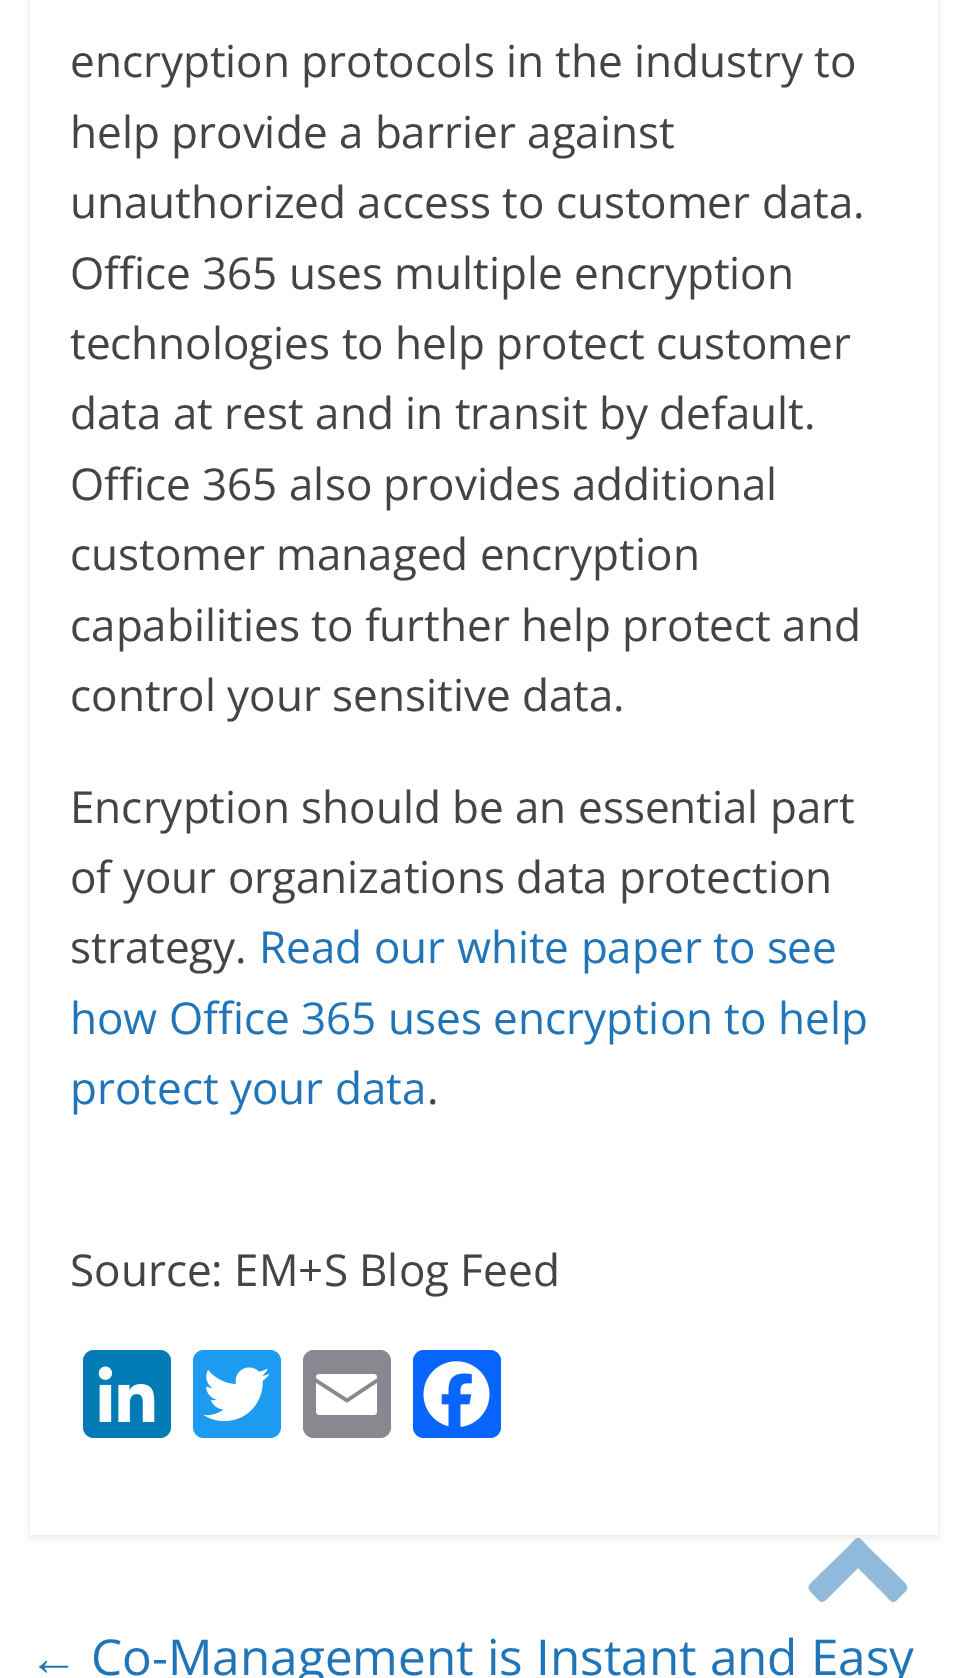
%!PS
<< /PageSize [966 1678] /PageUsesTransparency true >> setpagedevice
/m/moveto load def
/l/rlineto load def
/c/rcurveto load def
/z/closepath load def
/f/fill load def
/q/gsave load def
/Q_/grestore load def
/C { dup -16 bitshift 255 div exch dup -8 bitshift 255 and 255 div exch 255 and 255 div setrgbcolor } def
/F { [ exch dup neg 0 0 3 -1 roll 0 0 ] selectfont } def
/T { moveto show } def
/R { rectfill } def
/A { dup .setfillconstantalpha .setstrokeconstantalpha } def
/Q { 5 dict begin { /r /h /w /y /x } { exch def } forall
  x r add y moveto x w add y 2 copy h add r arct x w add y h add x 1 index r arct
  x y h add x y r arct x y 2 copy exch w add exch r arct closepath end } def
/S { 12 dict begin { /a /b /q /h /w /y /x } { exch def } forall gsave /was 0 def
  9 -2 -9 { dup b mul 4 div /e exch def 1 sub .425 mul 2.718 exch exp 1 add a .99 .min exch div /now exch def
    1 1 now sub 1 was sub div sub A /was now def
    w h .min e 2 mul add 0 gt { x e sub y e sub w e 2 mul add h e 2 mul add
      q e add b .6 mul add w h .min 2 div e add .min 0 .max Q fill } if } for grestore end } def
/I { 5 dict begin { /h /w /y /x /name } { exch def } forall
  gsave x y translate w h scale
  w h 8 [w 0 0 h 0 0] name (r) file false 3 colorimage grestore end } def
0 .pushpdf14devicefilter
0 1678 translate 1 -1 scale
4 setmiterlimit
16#FFFFFF C
0 0 966 1678 R
q
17 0 m 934 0 l 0 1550 l -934 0 l z 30 -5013 m 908 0 l 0 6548 l -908 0 l z eoclip newpath
16#000000 C
30 -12 908 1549 0 4 .1 S
Q_
/OpenSans-Regular 44 F
16#444444 C
(encryption protocols in the industry to) 70 77 T
(help provide a barrier against) 70 148 T
(unauthorized access to customer data.) 70 218 T
(Office 365 uses multiple encryption) 70 289 T
(technologies to help protect customer) 70 359 T
(data at rest and in transit by default.) 70 429 T
(Office 365 also provides additional) 70 500 T
(customer managed encryption) 70 570 T
(capabilities to further help protect and) 70 641 T
(control your sensitive data.) 70 711 T
(Encryption should be an essential part) 70 823 T
(of your organizations data protection) 70 893 T
(strategy.) 70 963 T
16#2075B8 C
(Read our white paper to see) 259 963 T
(how Office 365 uses encryption to help) 70 1034 T
(protect your data) 70 1104 T
16#444444 C
(.) 427 1104 T
(Source: EM+S Blog Feed) 70 1286 T
16#007BB5 C
83 1350 88 88 11 Q f
(1.rgb) 98 1366 57 56 I
16#1D9BF0 C
193 1350 88 88 11 Q f
(2.rgb) 203 1367 67 55 I
16#888990 C
303 1350 88 88 11 Q f
16#FFFFFF C
377 1410 m 0 -27 l -30 20 l -31 -20 l 0 27 l 0 4 1 5 5 5 c 51 0 l 4 0 5 -1 5 -5 c 377 1378 m 0 -3 -1 -4 -5 -4 c -51 0 l -4 0 -5 1 -5 4 c 31 20 l z f
16#0866FF C
413 1350 88 88 11 Q f
(3.rgb) 423 1361 67 66 I
/LiberationSerif-Regular 49.5 F
16#2075B8 C
(←) 29 1675 T
/OpenSans-Regular 49.5 F
(Co-Management is Instant and Easy) 91 1675 T
0.5 A
906 1591 m -8 8 l -6 6 -7 2 -13 -4 c -27 -27 l -27 27 l -11 11 -9 8 -20 -3 c -6 -6 0 -8 6 -15 c 31 -30 l 11 -12 9 -12 20 0 c 31 30 l 1 2 12 9 7 14 c z f
.poppdf14devicefilter showpage
